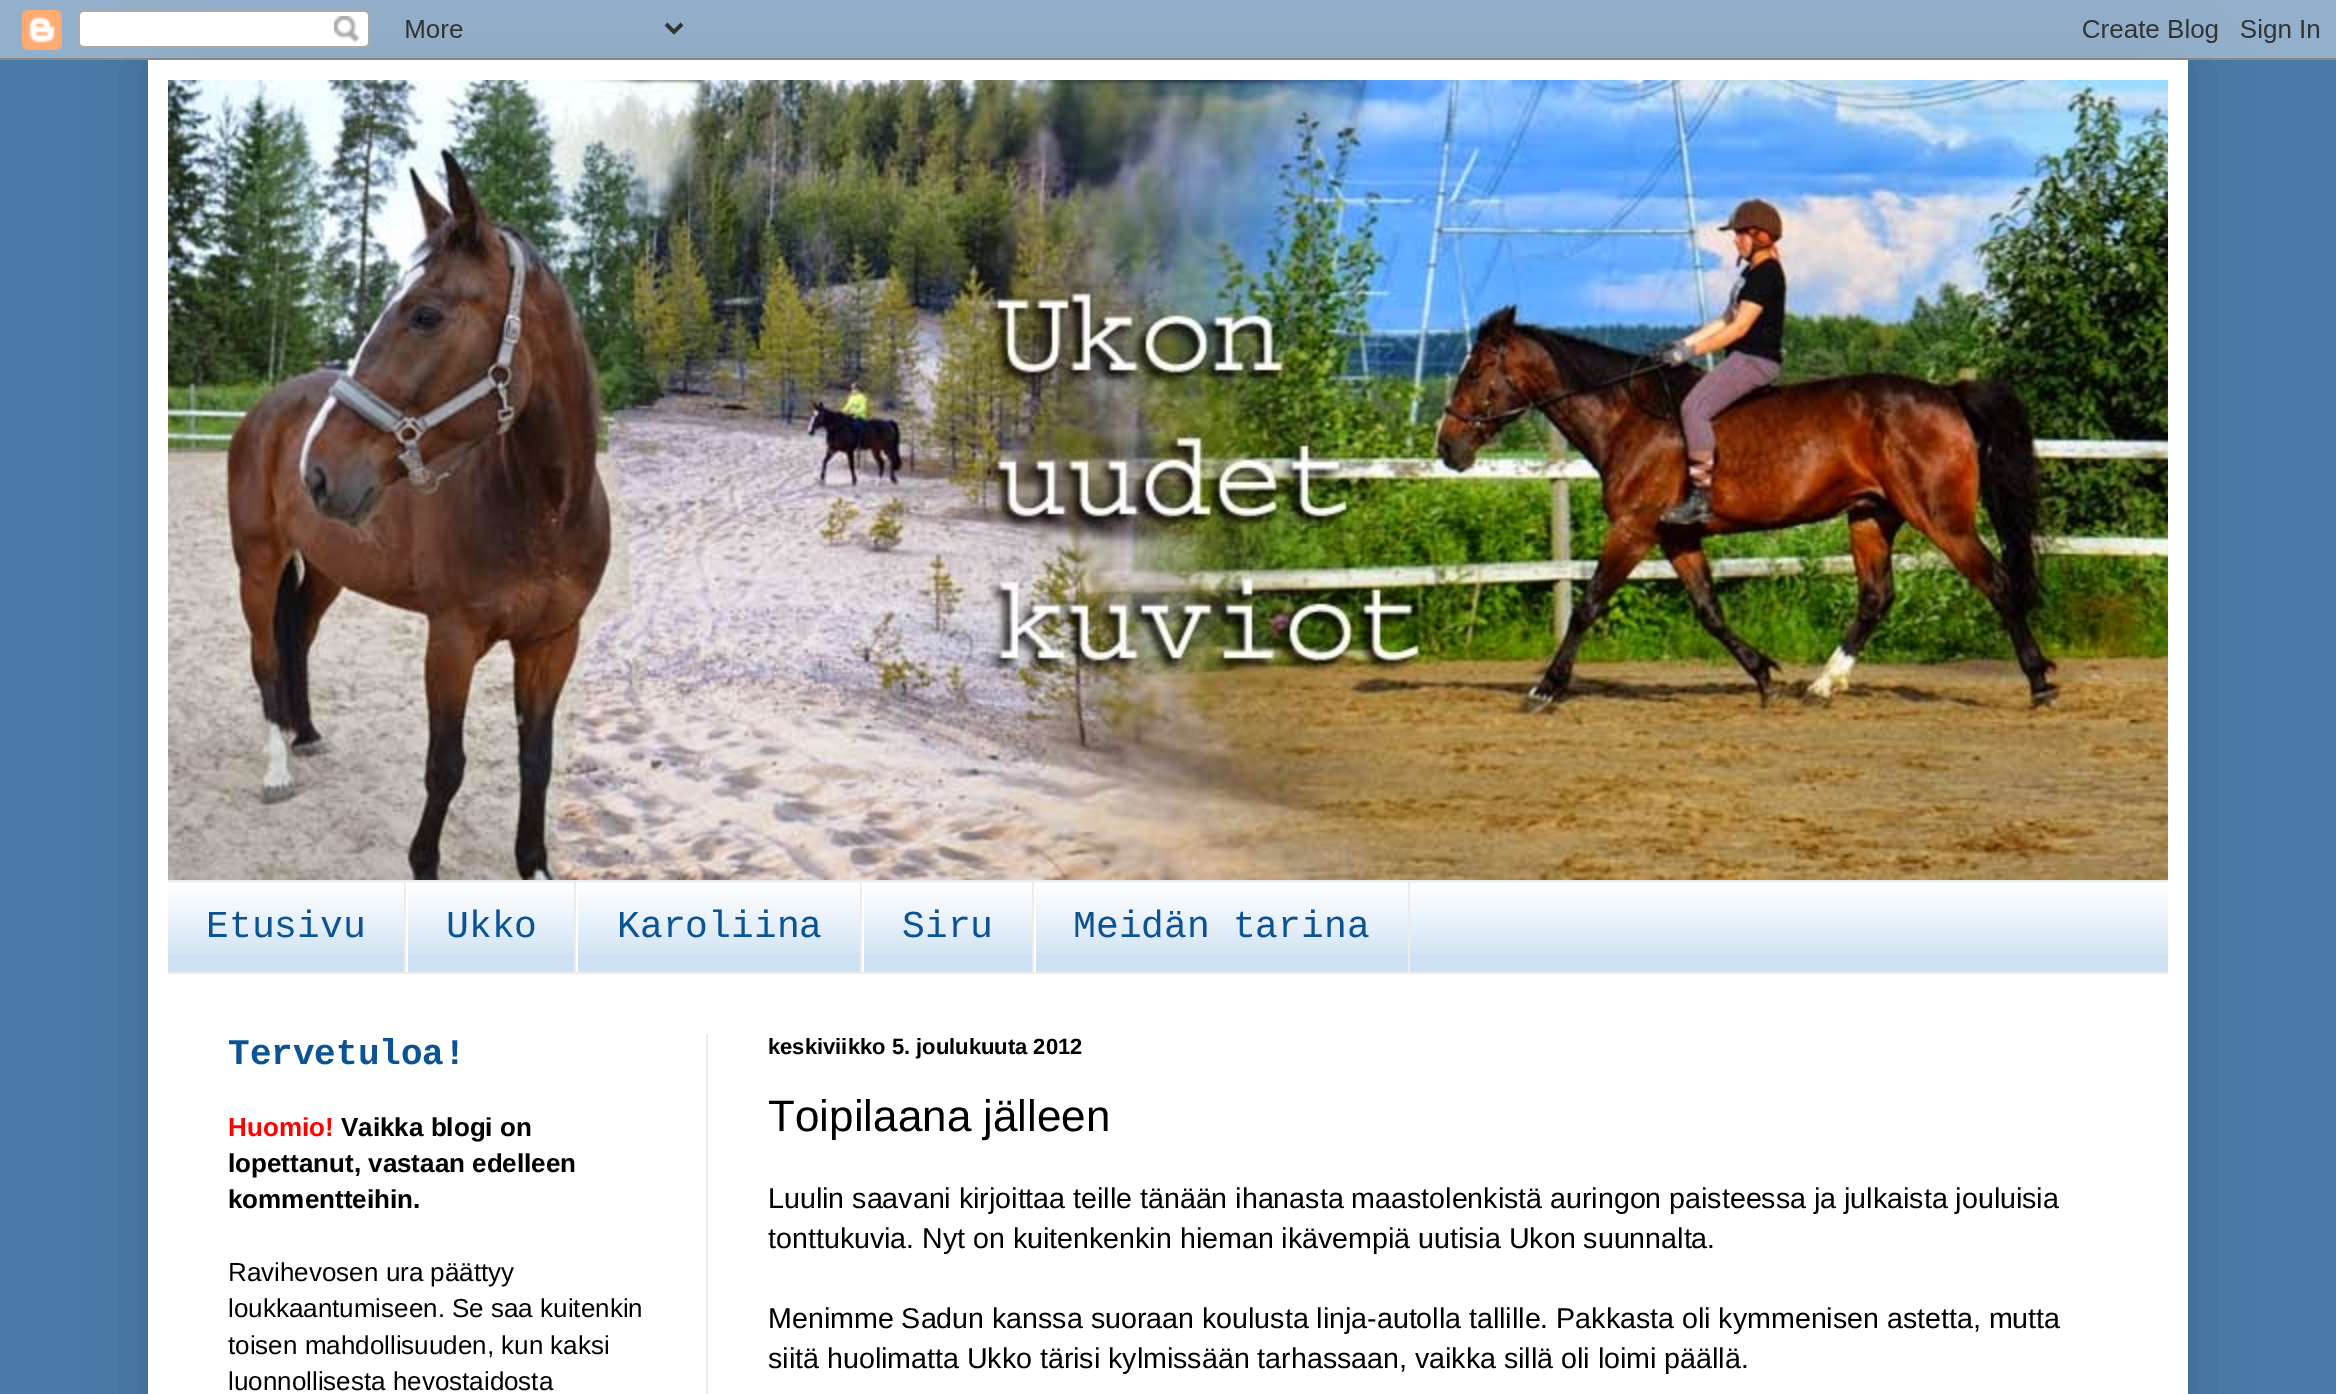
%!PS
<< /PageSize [2336 1394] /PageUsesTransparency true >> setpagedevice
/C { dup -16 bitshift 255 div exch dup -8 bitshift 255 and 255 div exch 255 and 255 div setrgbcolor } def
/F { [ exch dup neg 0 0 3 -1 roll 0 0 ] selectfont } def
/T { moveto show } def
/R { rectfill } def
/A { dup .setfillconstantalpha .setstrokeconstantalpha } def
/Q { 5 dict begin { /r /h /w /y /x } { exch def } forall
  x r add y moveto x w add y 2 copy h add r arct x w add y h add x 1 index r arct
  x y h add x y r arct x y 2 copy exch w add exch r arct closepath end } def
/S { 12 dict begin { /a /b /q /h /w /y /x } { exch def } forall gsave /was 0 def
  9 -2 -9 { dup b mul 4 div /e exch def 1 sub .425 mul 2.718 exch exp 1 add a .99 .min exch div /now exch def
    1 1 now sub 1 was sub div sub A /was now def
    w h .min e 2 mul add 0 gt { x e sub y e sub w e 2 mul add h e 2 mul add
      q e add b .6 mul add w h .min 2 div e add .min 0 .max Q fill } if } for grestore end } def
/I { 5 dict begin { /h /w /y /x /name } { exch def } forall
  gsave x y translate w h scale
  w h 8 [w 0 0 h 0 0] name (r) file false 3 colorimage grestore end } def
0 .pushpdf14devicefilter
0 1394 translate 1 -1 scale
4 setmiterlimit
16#4A7AA8 C
0 0 2336 1394 R
16#000000 C
148 60 2040 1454 0 40 .15 S
(1.rgb) 0 0 2336 60 I
16#FFFFFF C
148 60 2040 1334 R
(2.rgb) 168 80 2000 800 I
16#CFE2F3 C
168 882 2000 90 R
(3.rgb) 168 882 2000 72 I
16#ECECEC C
168 880 2000 2 R
168 972 2000 2 R
404 882 2 90 R
/LiberationMono-Regular 38 F
16#0B5394 C
(Etusivu) 206 937 T
16#ECECEC C
574 882 2 90 R
16#FFFFFF C
406 882 2 90 R
16#0B5394 C
(Ukko) 446 937 T
16#ECECEC C
860 882 2 90 R
16#FFFFFF C
576 882 2 90 R
16#0B5394 C
(Karoliina) 617 937 T
16#ECECEC C
1032 882 2 90 R
16#FFFFFF C
862 882 2 90 R
16#0B5394 C
(Siru) 902 937 T
16#ECECEC C
1408 882 2 90 R
16#FFFFFF C
1034 882 2 90 R
16#0B5394 C
(Meidän tarina) 1073 937 T
16#ECECEC C
706 1034 2 360 R
/LiberationMono-Bold 36 F
16#0B5394 C
(Tervetuloa!) 228 1064 T
/LiberationSans-Bold 26 F
16#FF0000 C
(Huomio!) 228 1136 T
16#000000 C
(Vaikka blogi on) 341 1136 T
(lopettanut, vastaan edelleen) 228 1172 T
(kommentteihin.) 228 1208 T
/LiberationSans-Regular 26 F
(Ravihevosen ura päättyy) 228 1281 T
(loukkaantumiseen. Se saa kuitenkin) 228 1317 T
(toisen mahdollisuuden, kun kaksi) 228 1354 T
(luonnollisesta hevostaidosta) 228 1390 T
/LiberationSans-Bold 22 F
(keskiviikko 5. joulukuuta 2012) 768 1054 T
/LiberationSans-Regular 44 F
(Toipilaana jälleen) 768 1131 T
/LiberationSans-Regular 28.6 F
(Luulin saavani kirjoittaa teille tänään ihanasta maastolenkistä auringon paisteessa ja julkaista jouluisia) 768 1208 T
(tonttukuvia. Nyt on kuitenkenkin hieman ikävempiä uutisia Ukon suunnalta.) 768 1248 T
(Menimme Sadun kanssa suoraan koulusta linja-autolla tallille. Pakkasta oli kymmenisen astetta, mutta) 768 1328 T
(siitä huolimatta Ukko tärisi kylmissään tarhassaan, vaikka sillä oli loimi päällä.) 768 1368 T
.poppdf14devicefilter showpage
